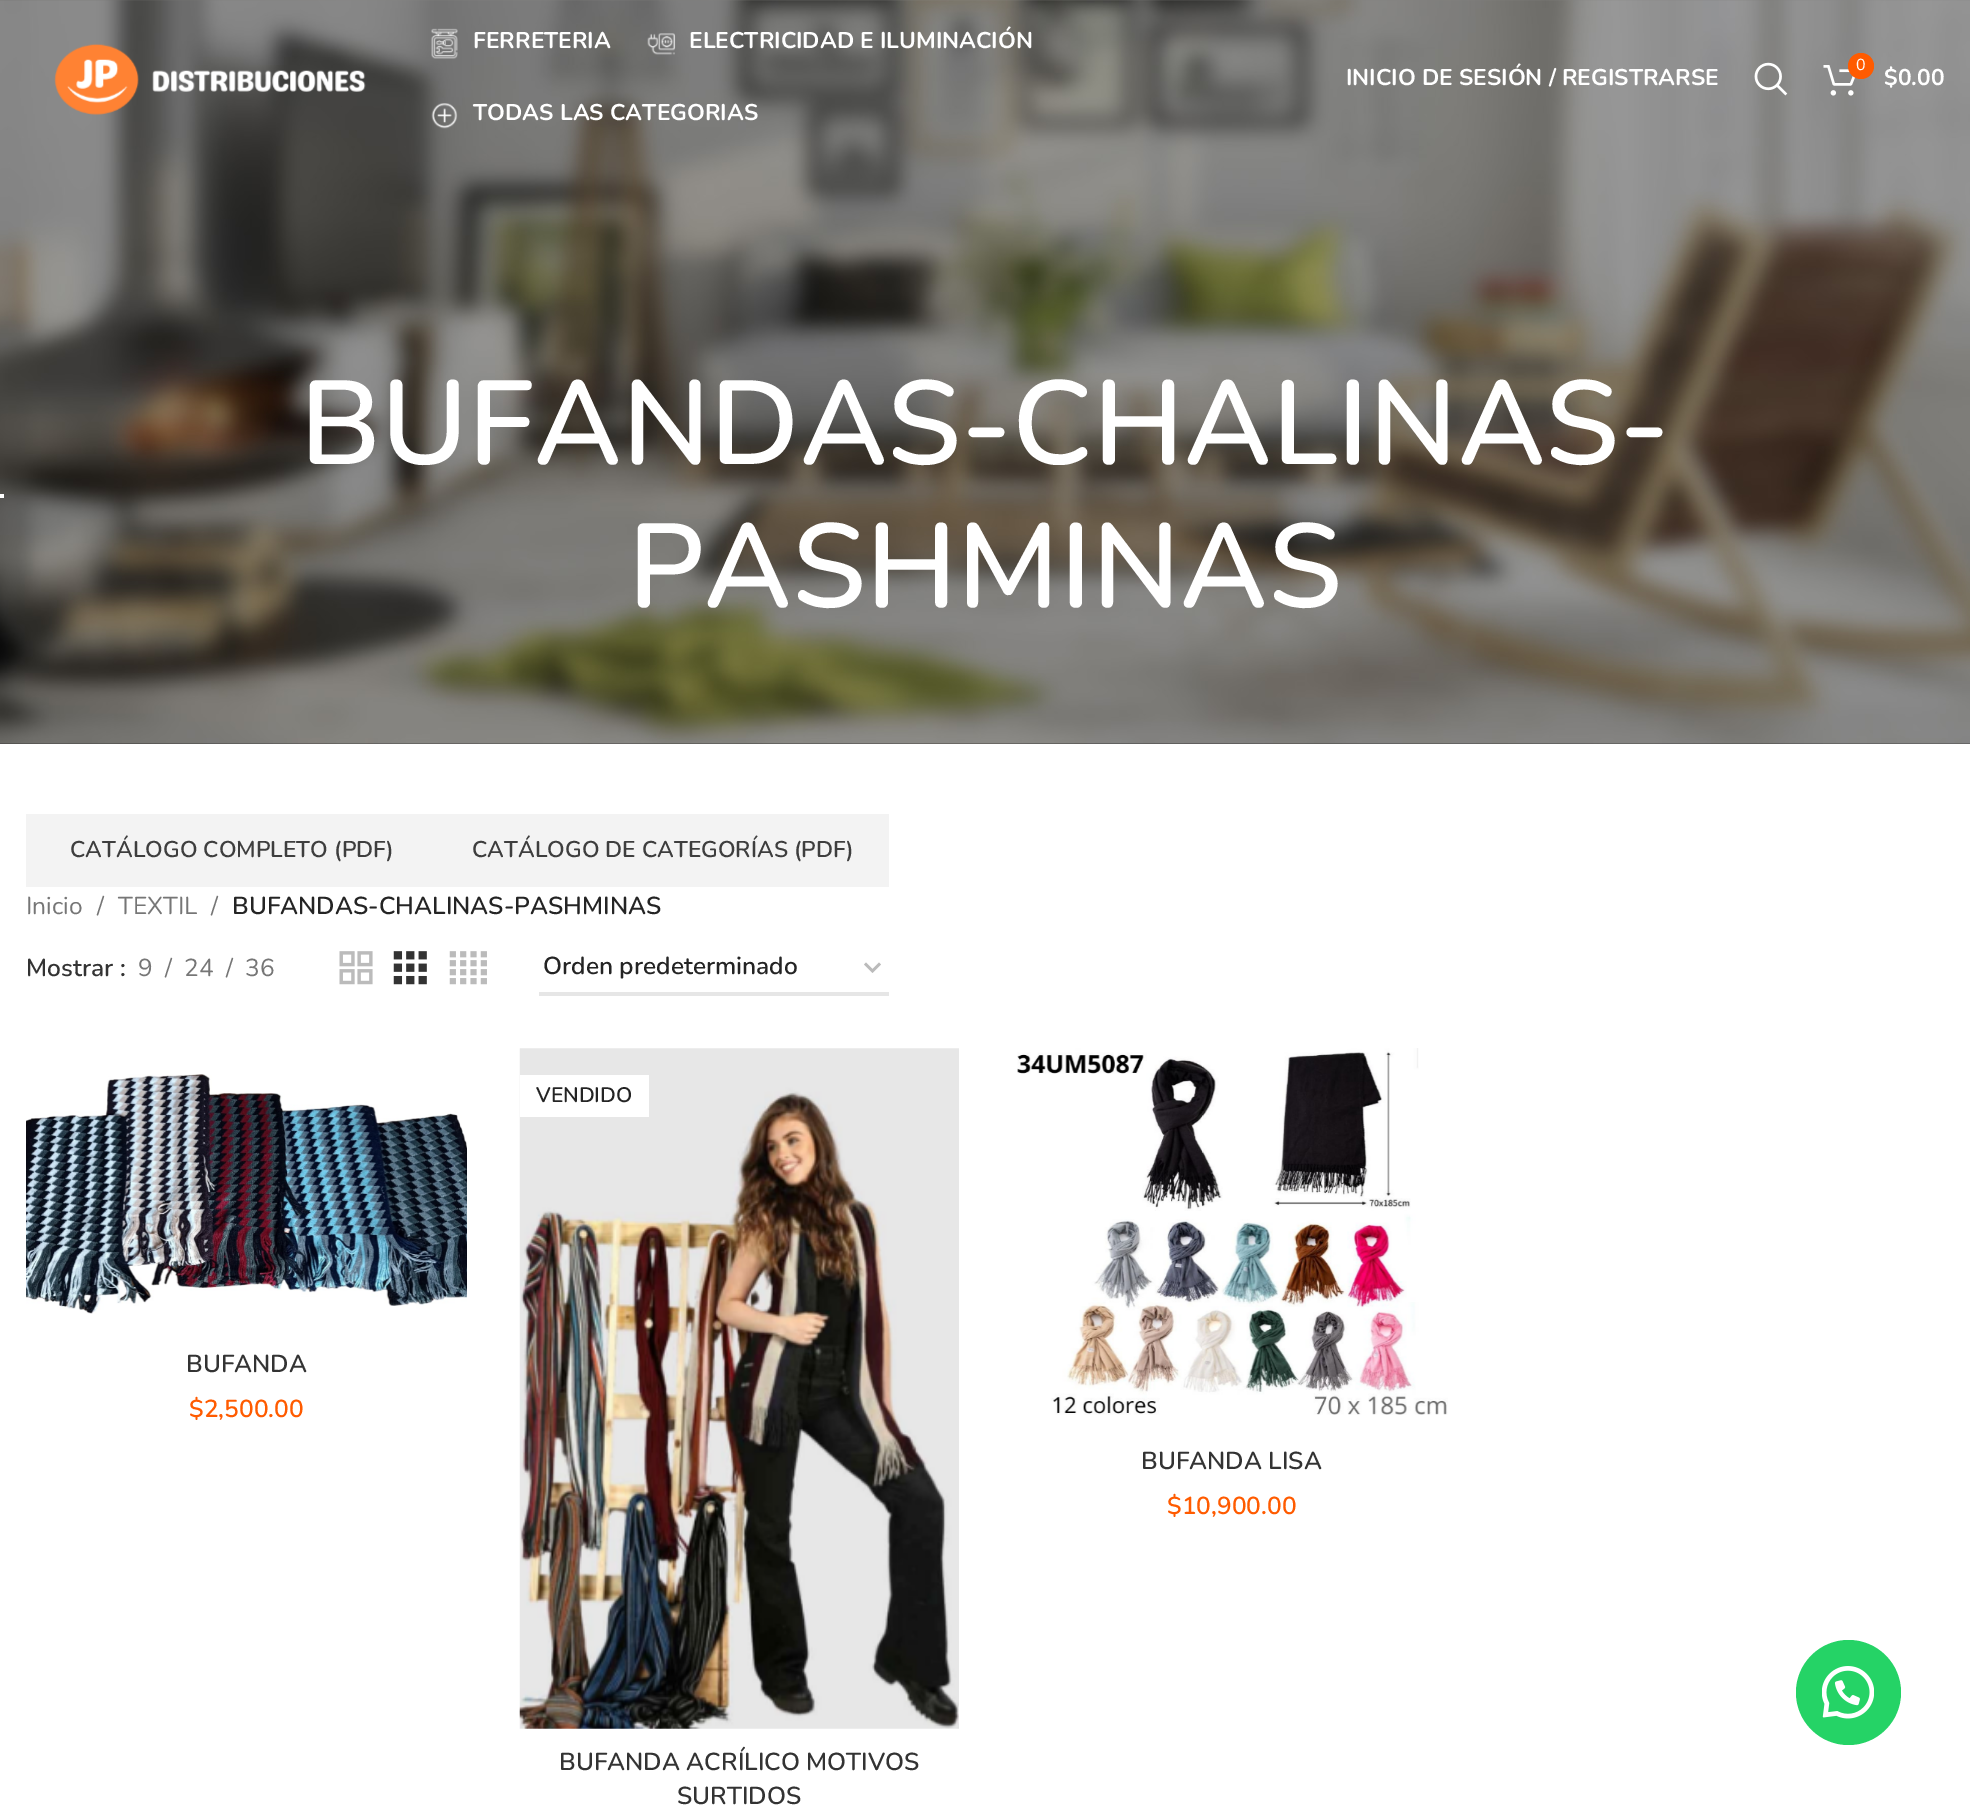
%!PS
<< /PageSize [1970 1814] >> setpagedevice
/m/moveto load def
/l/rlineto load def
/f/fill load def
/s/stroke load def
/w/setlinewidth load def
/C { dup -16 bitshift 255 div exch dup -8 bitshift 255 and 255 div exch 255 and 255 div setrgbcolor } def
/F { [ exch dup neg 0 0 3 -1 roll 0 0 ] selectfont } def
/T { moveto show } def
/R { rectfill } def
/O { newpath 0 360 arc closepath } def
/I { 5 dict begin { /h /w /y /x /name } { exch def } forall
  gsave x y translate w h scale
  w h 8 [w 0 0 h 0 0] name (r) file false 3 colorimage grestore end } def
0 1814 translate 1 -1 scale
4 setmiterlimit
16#FFFFFF C
0 0 1970 1814 R
(7.rgb) 0 0 1970 744 I
(1.rgb) 54 44 312 71 I
(2.rgb) 431 28 27 31 I
/Nunito-Bold 22.75 F
(FERRETERIA) 473 48 T
(3.rgb) 647 33 29 22 I
(ELECTRICIDAD E ILUMINACIÓN) 689 48 T
(4.rgb) 431 103 27 26 I
(TODAS LAS CATEGORIAS) 473 120 T
(INICIO DE SESIÓN / REGISTRARSE) 1346 85 T
(5.rgb) 1754 62 34 34 I
(6.rgb) 1823 65 33 31 I
16#FF5B00 C
1861 66 13 O f
/Nunito-Regular 16 F
16#FFFFFF C
(0) 1856 70 T
/Nunito-Bold 22.75 F
($0.00) 1884 85 T
0 494 4 4 R
/Nunito-SemiBold 119 F
(BUFANDAS-CHALINAS-) 300 464 T
(PASHMINAS) 628 607 T
16#F3F3F3 C
26 814 863 73 R
/Nunito-SemiBold 22.75 F
16#3E3E3E C
(CATÁLOGO COMPLETO \(PDF\)) 70 857 T
(CATÁLOGO DE CATEGORÍAS \(PDF\)) 472 857 T
/Nunito-Regular 24.5 F
16#767676 C
(Inicio) 26 914 T
(/) 97 914 T
(TEXTIL) 118 914 T
(/) 211 914 T
/Nunito-SemiBold 24.5 F
16#242424 C
(BUFANDAS-CHALINAS-PASHMINAS) 232 914 T
16#333333 C
(Mostrar :) 26 976 T
/Nunito-Regular 24.5 F
16#767676 C
(9) 138 976 T
(/) 165 976 T
(24) 184 976 T
(/) 226 976 T
(36) 245 976 T
(8.rgb) 339 951 34 34 I
(9.rgb) 393 951 34 34 I
(10.rgb) 449 951 38 34 I
16#BBBBBB C
2.5 w
865 963.5 m 7.5 7.5 l 7.5 -7.5 l s
16#E6E6E6 C
539 992 350 4 R
/Nunito-SemiBold 24.5 F
16#242424 C
(Orden predeterminado) 543 974 T
(11.rgb) 26 1074 441 240 I
16#333333 C
(BUFANDA) 186 1372 T
16#FF5B00 C
($2,500.00) 189 1417 T
(12.rgb) 519 1048 440 681 I
16#FFFFFF C
520 1075 129 42 R
/Nunito-SemiBold 21 F
16#242424 C
(VENDIDO) 536 1102 T
/Nunito-SemiBold 24.5 F
16#333333 C
(BUFANDA ACRÍLICO MOTIVOS) 559 1770 T
(SURTIDOS) 677 1804 T
(13.rgb) 1017 1048 431 367 I
(BUFANDA LISA) 1141 1469 T
16#FF5B00 C
($10,900.00) 1167 1514 T
16#25D366 C
1848.5 1692.5 52.5 O f
(14.rgb) 1822 1666 52 53 I
showpage
